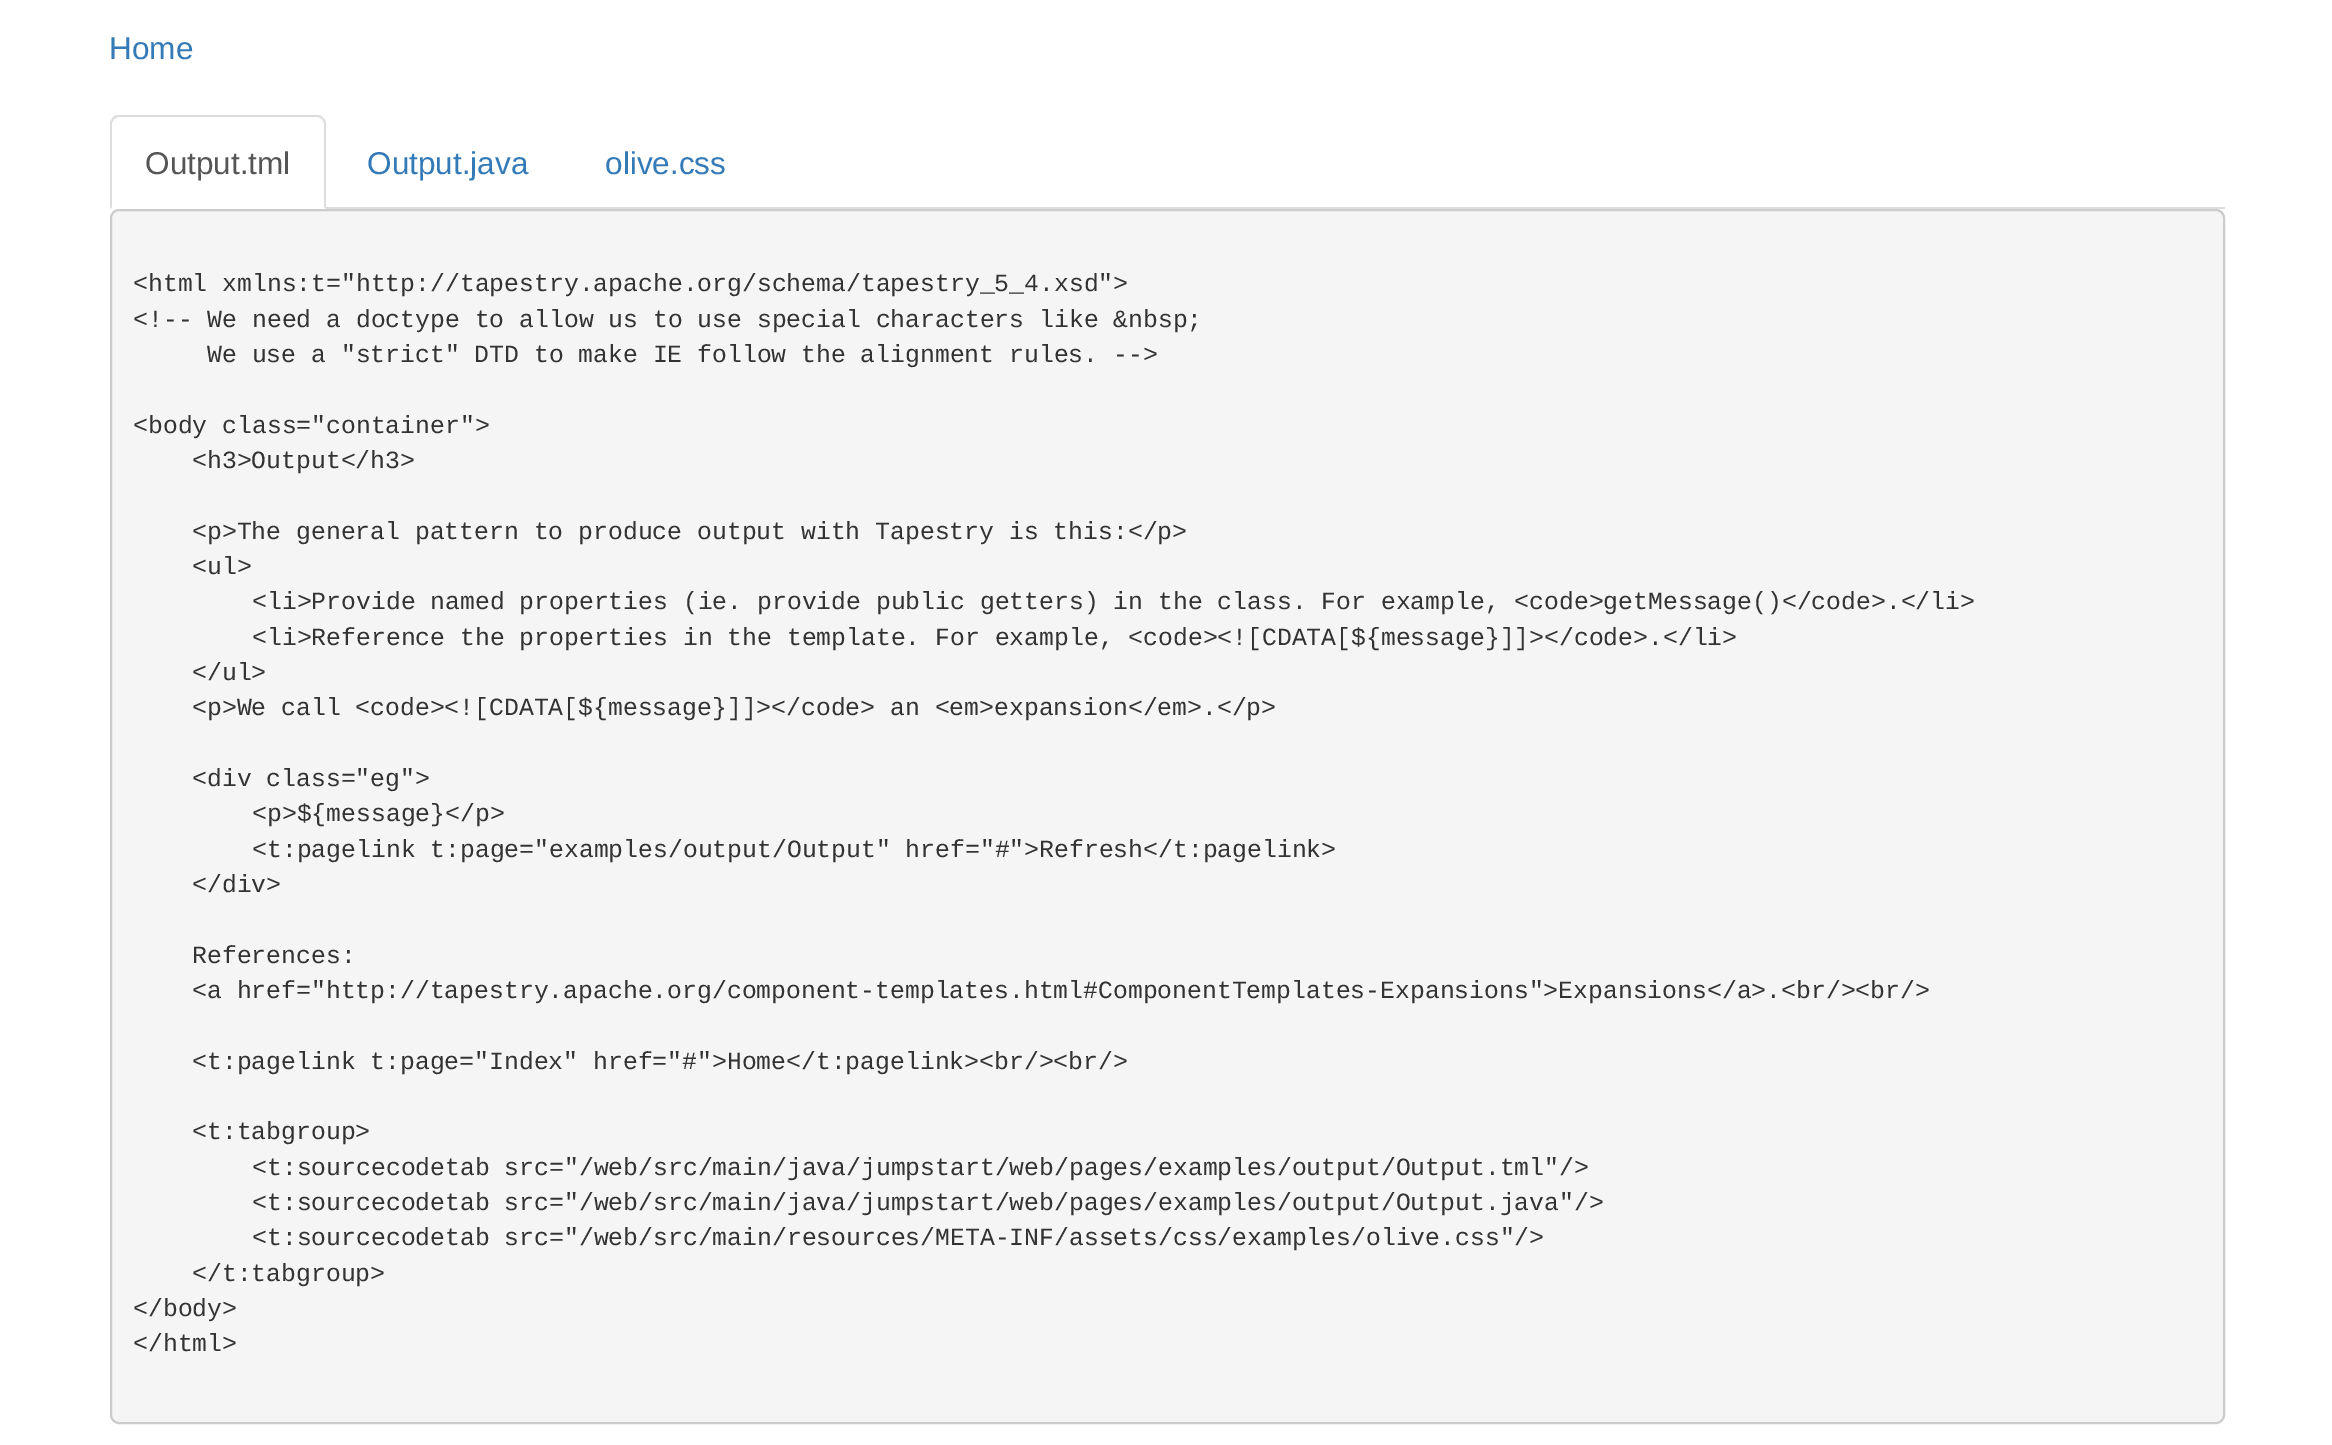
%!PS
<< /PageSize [2332 1445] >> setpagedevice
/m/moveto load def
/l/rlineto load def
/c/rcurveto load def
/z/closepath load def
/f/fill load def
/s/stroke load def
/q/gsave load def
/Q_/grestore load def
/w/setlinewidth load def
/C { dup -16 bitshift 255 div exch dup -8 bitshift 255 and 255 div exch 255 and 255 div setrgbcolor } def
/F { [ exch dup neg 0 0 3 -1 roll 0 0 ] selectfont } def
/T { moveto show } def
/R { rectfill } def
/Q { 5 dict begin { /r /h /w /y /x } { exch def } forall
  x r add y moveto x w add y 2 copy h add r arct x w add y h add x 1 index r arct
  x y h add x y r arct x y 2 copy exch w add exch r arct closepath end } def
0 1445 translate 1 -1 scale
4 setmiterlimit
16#FFFFFF C
0 0 2332 1445 R
/LiberationSans-Regular 31.5 F
16#337AB7 C
(Home) 109 59 T
16#DDDDDD C
326 207 1899 2 R
119 115 m -2 0 -5 1 -6 2 c 1 2 l 4 -2 l 199 0 l 2 0 4 1 5 2 c 1 -1 l -1 -2 -3 -3 -6 -3 c z f
326 209 m 0 -85 l 0 -2 -1 -5 -3 -6 c -1 1 l 1 1 2 3 2 5 c 0 83 l z f
110 122 m 1 -2 2 -3 3 -5 c 1 2 l -2 4 l 0 84 l -2 2 l z f
16#555555 C
(Output.tml) 145 174 T
16#337AB7 C
(Output.java) 367 174 T
(olive.css) 605 174 T
16#F5F5F5 C
111 210 2113 1213 8 Q q f Q_
16#CCCCCC C
2 w
s
/LiberationMono-Regular 24.75 F
16#333333 C
(<html xmlns:t="http://tapestry.apache.org/schema/tapestry_5_4.xsd">) 133 291 T
(<!-- We need a doctype to allow us to use special characters like &nbsp;) 133 327 T
(We use a "strict" DTD to make IE follow the alignment rules. -->) 207 362 T
(<body class="container">) 133 433 T
(<h3>Output</h3>) 192 468 T
(<p>The general pattern to produce output with Tapestry is this:</p>) 192 539 T
(<ul>) 192 574 T
(<li>Provide named properties \(ie. provide public getters\) in the class. For example, <code>getMessage\(\)</code>.</li>) 252 609 T
(<li>Reference the properties in the template. For example, <code><![CDATA[${message}]]></code>.</li>) 252 645 T
(</ul>) 192 680 T
(<p>We call <code><![CDATA[${message}]]></code> an <em>expansion</em>.</p>) 192 715 T
(<div class="eg">) 192 786 T
(<p>${message}</p>) 252 821 T
(<t:pagelink t:page="examples/output/Output" href="#">Refresh</t:pagelink>) 252 857 T
(</div>) 192 892 T
(References:) 192 963 T
(<a href="http://tapestry.apache.org/component-templates.html#ComponentTemplates-Expansions">Expansions</a>.<br/><br/>) 192 998 T
(<t:pagelink t:page="Index" href="#">Home</t:pagelink><br/><br/>) 192 1069 T
(<t:tabgroup>) 192 1139 T
(<t:sourcecodetab src="/web/src/main/java/jumpstart/web/pages/examples/output/Output.tml"/>) 252 1175 T
(<t:sourcecodetab src="/web/src/main/java/jumpstart/web/pages/examples/output/Output.java"/>) 252 1210 T
(<t:sourcecodetab src="/web/src/main/resources/META-INF/assets/css/examples/olive.css"/>) 252 1245 T
(</t:tabgroup>) 192 1281 T
(</body>) 133 1316 T
(</html>) 133 1351 T
showpage
